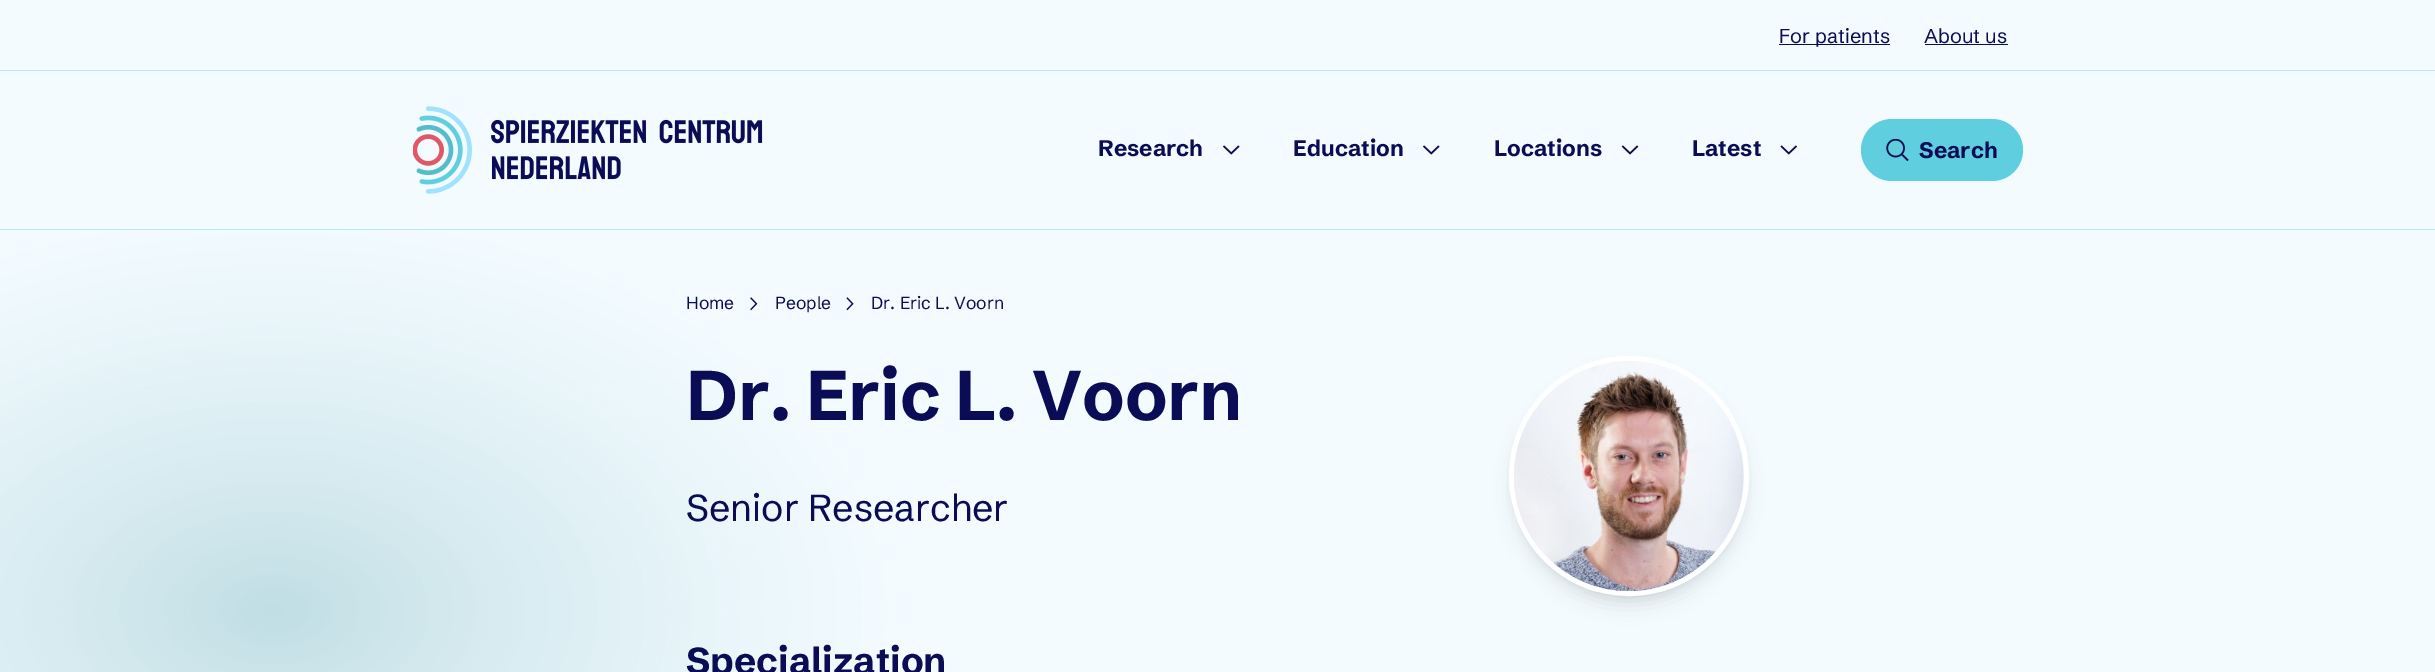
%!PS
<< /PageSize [2435 672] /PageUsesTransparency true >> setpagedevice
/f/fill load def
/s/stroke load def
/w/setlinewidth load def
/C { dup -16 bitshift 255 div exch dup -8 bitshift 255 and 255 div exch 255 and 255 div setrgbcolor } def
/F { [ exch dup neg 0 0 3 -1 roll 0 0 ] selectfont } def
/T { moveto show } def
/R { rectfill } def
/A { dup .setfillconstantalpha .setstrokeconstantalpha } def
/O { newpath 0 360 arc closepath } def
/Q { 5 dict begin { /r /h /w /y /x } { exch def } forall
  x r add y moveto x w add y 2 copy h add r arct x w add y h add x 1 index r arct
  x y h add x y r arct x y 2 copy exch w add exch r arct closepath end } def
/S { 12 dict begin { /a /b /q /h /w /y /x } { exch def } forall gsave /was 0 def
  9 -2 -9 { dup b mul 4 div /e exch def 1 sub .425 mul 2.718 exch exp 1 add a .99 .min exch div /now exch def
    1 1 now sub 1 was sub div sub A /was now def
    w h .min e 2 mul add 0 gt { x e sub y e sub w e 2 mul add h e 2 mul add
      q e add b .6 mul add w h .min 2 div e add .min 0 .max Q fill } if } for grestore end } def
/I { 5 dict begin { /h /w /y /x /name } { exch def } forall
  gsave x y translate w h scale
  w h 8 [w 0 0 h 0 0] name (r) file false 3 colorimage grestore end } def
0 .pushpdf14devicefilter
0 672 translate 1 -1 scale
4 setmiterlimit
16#F3FBFF C
0 0 2435 672 R
16#0A0D55 C
1779 44 111 1 R
/SchibstedGrotesk-Regular 20 F
(For patients) 1779 43 T
(About us) 1924 43 T
1925 44 83 1 R
16#B5E9F1 C
0 70 2435 1 R
0 229 2435 1 R
(1.rgb) 413 106 350 88 I
/SchibstedGrotesk-Bold 22.5 F
16#0A0D55 C
(Research) 1098 156 T
(2.rgb) 1222 145 18 10 I
(Education) 1293 156 T
(2.rgb) 1422 145 18 10 I
(Locations) 1494 156 T
(3.rgb) 1621 145 18 10 I
(Latest) 1692 156 T
(4.rgb) 1780 145 18 10 I
16#5FCFE0 C
1861 119 162 62 31 Q f
(5.rgb) 1886 139 23 22 I
16#0A0D55 C
(Search) 1919 158 T
(6.rgb) 0 230 900 442 I
/SchibstedGrotesk-Regular 17.5 F
(Home) 686 309 T
(7.rgb) 750 297 8 14 I
(People) 775 309 T
(8.rgb) 846 297 8 14 I
(Dr. Eric L. Voorn) 871 309 T
/SchibstedGrotesk-Bold 70 F
(Dr. Eric L. Voorn) 686 420 T
/SchibstedGrotesk-Regular 37.5 F
(Senior Researcher) 686 521 T
16#000000 C
1514 366 230 230 115 4 .1 S
1513 373 232 232 116 9.5 .1 S
16#FFFFFF C
5 w
1629 476 117.5 O s
(9.rgb) 1514 362 230 230 I
/SchibstedGrotesk-Bold 37.5 F
16#0A0D55 C
(Specialization) 686 674 T
.poppdf14devicefilter showpage
